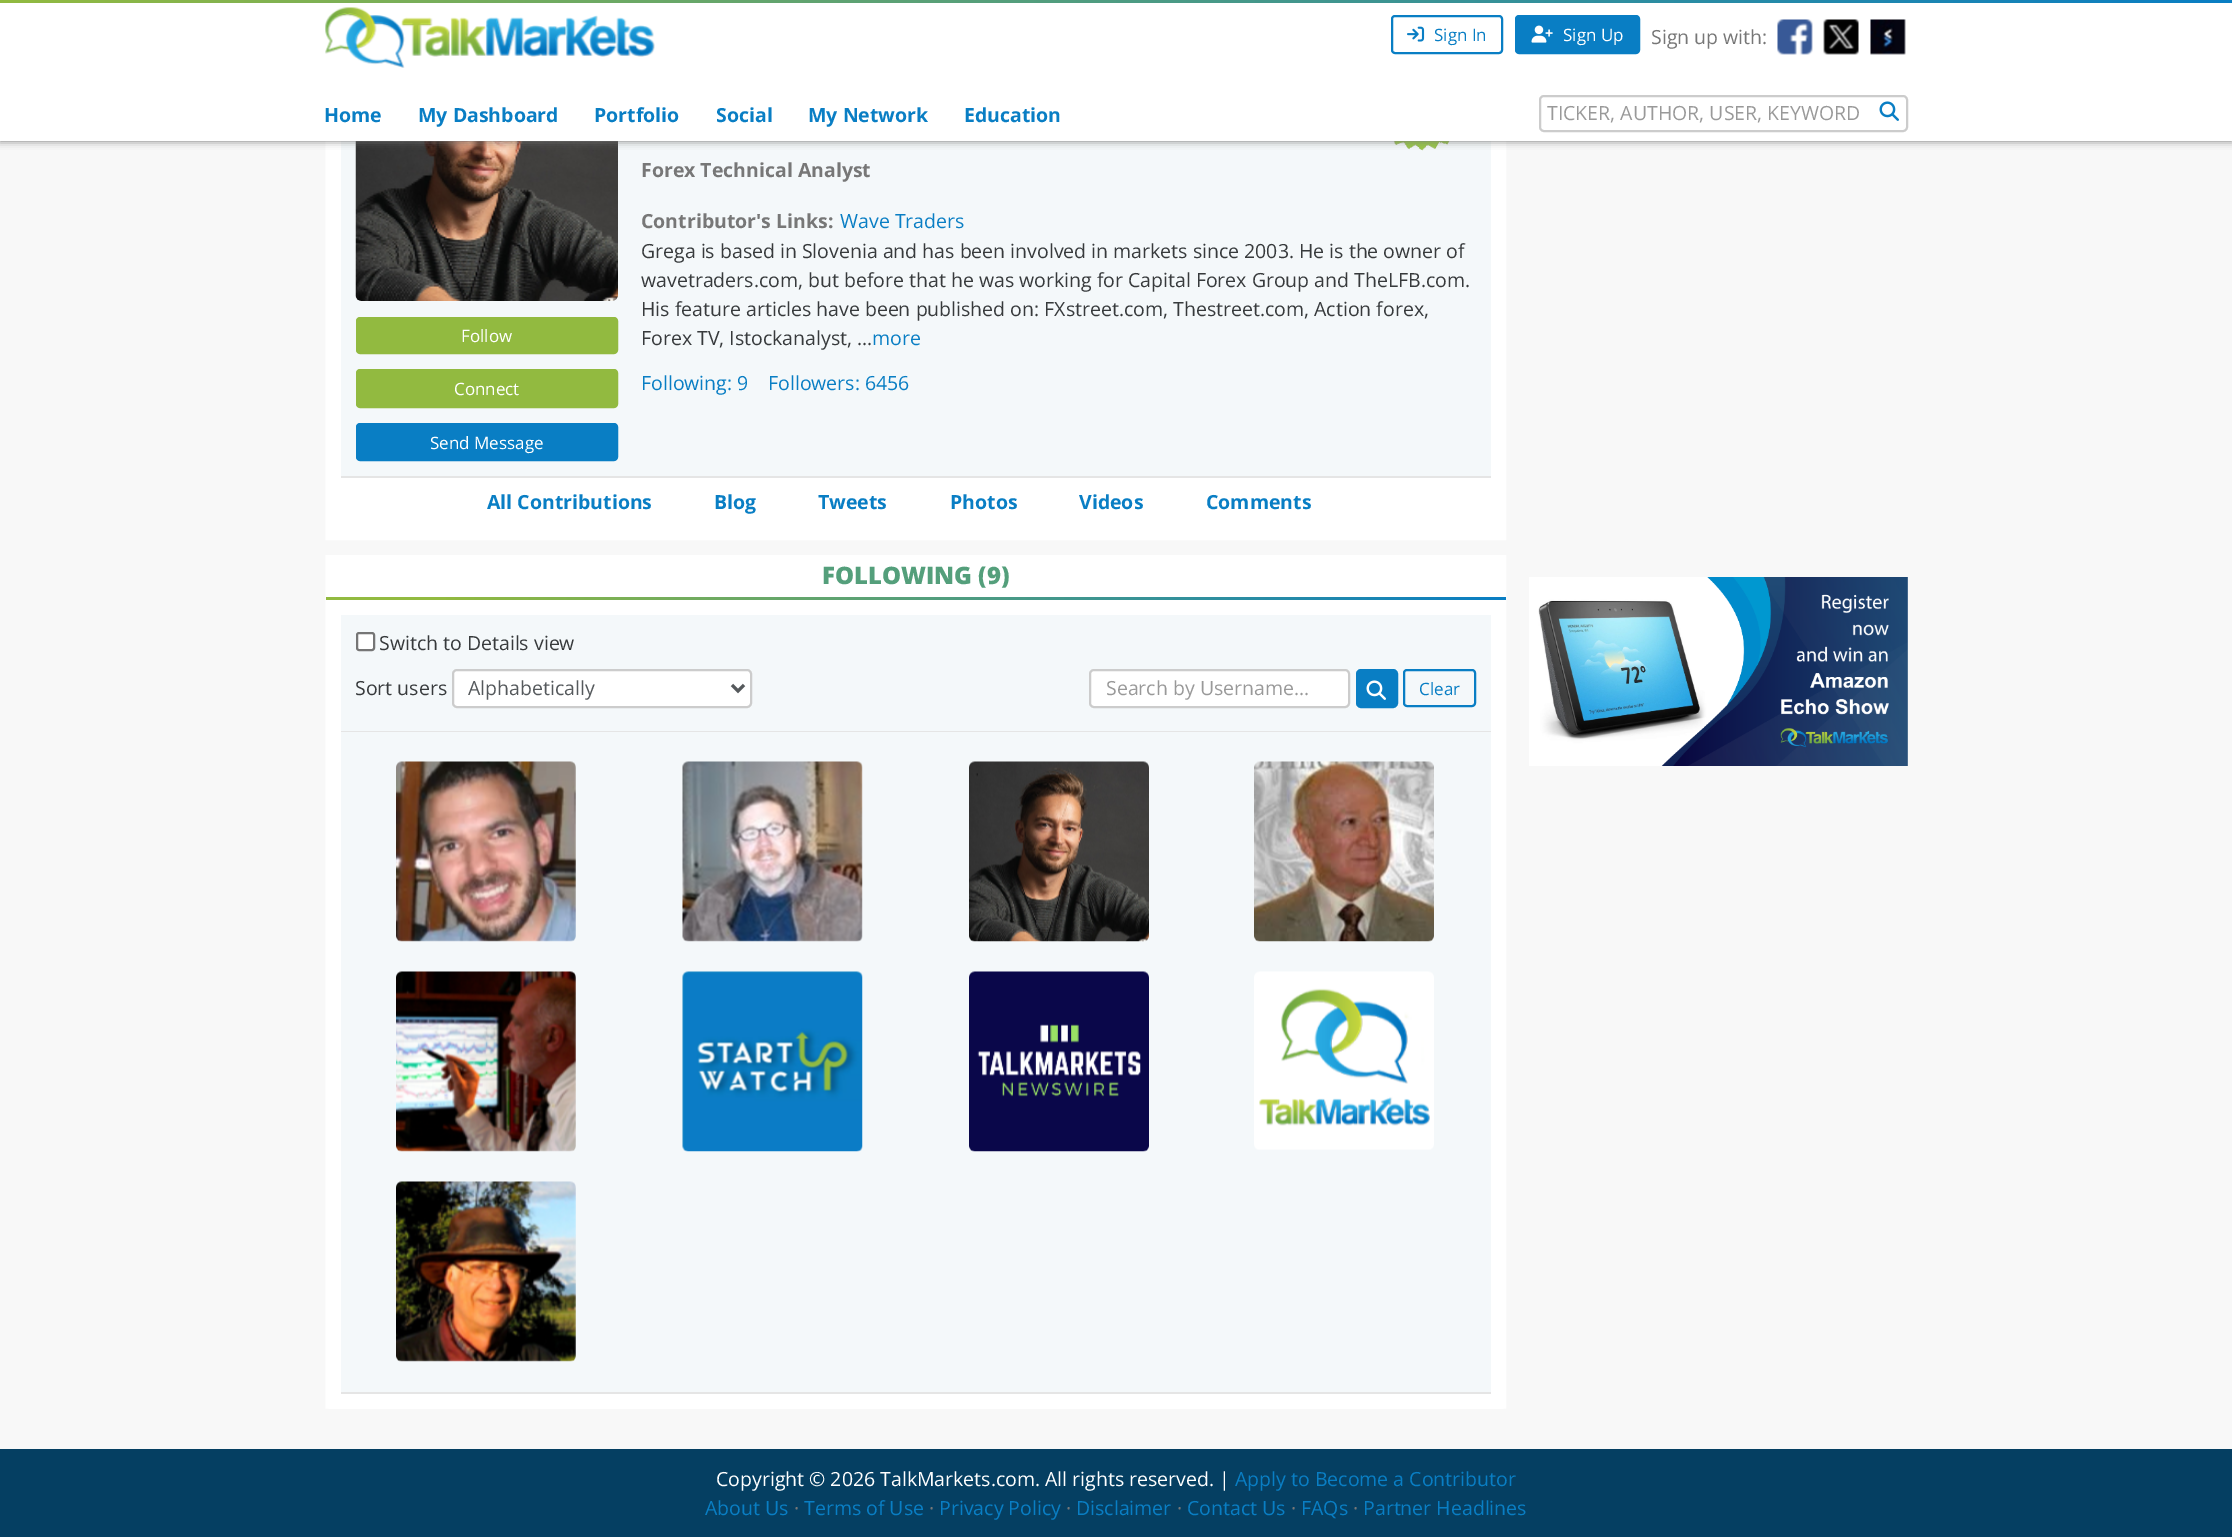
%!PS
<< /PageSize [2232 1537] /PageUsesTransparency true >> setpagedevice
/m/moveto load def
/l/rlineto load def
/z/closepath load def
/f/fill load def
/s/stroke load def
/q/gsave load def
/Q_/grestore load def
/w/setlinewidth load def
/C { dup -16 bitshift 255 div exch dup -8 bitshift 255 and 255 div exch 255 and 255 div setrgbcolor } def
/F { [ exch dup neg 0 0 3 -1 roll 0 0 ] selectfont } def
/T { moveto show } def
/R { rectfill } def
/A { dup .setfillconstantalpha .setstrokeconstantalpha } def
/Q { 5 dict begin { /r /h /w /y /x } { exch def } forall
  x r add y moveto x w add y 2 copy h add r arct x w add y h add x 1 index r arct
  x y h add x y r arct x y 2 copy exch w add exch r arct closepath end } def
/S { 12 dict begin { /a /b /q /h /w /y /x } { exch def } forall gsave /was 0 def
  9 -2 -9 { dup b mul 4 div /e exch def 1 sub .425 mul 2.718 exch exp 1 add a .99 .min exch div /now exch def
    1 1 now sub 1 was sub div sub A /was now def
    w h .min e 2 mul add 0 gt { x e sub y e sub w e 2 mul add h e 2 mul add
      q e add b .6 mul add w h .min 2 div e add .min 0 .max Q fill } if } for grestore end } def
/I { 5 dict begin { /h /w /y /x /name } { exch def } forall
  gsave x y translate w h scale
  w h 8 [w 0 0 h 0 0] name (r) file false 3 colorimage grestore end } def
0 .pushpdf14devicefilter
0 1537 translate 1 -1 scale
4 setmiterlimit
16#F8F8F8 C
0 0 2232 1537 R
16#FFFFFF C
340 141 1151 384 R
15 w
333 15 m 1165.5 0 l 0 517.5 l -1165.5 0 l z s
16#F4F8FA C
341 141 1150 335 R
(8.rgb) 355 141 263 160 I
(9.rgb) 1393 141 57 10 I
16#777777 C
0 0 2232 141 0 4 1 S
q 0 0 m 2232 0 l 0 3 l -2232 0 l z clip newpath
<< /ShadingType 2 /ColorSpace /DeviceRGB /Coords [0 1.5 2232 1.5] /Extend [true true] /Function << /FunctionType 2 /Domain [0 1] /C0 [.573 .729 .251] /C1 [.035 .494 .769] /N 1 >> >> shfill Q_
16#FFFFFF C
0 3 2232 138 R
(1.rgb) 325 7 330 61 I
16#097EC4 C
2 w
1392 16 110 37 3 Q s
(2.rgb) 1407 26 18 16 I
/OpenSans-Regular 17 F
(Sign In) 1434 41 T
1516 16 123 37 3 Q q f Q_
s
(3.rgb) 1531 25 22 18 I
16#FFFFFF C
(Sign Up) 1563 41 T
/OpenSans-Regular 19.5 F
16#777777 C
(Sign up with:) 1651 44 T
(4.rgb) 1777 19 36 36 I
(5.rgb) 1823 19 36 36 I
(6.rgb) 1870 19 36 36 I
/OpenSans-Bold 19.5 F
16#097EC4 C
(Home) 324 122 T
(My Dashboard) 418 122 T
(Portfolio) 594 122 T
(Social) 716 122 T
(My Network) 808 122 T
(Education) 964 122 T
16#CCCCCC C
1540 96 367 35 4 Q s
/OpenSans-Regular 19.5 F
16#999999 C
(TICKER, AUTHOR, USER, KEYWORD) 1547 120 T
(7.rgb) 1879 101 20 20 I
16#E5E5E5 C
341 476 1150 2 R
16#92BA40 C
357 318 260 35 3 Q q f Q_
s
/OpenSans-Regular 17 F
16#FFFFFF C
(Follow) 461 342 T
16#92BA40 C
357 370 260 37 3 Q q f Q_
s
16#FFFFFF C
(Connect) 454 395 T
16#097EC4 C
357 424 260 36 3 Q q f Q_
s
16#FFFFFF C
(Send Message) 430 449 T
/OpenSans-Bold 19.5 F
16#777777 C
(Forex Technical Analyst) 641 177 T
(Contributor's Links:) 641 228 T
/OpenSans-Regular 19.5 F
16#097EC4 C
(Wave Traders) 840 228 T
16#373A3C C
(Grega is based in Slovenia and has been involved in markets since 2003. He is the owner of) 641 258 T
(wavetraders.com, but before that he was working for Capital Forex Group and TheLFB.com.) 641 287 T
(His feature articles have been published on: FXstreet.com, Thestreet.com, Action forex,) 641 316 T
(Forex TV, Istockanalyst, ...) 641 345 T
16#097EC4 C
(more) 872 345 T
(Following: 9) 641 390 T
(Followers: 6456) 768 390 T
/OpenSans-Bold 19.5 F
(All Contributions) 487 509 T
(Blog) 714 509 T
(Tweets) 818 509 T
(Photos) 950 509 T
(Videos) 1079 509 T
(Comments) 1206 509 T
16#FFFFFF C
326 555 1180 854 5 Q f
15 w
333 562.5 m 1165.5 0 l 0 838.5 l -1165.5 0 l z s
/OpenSans-ExtraBold 24 F
16#549F7B C
(FOLLOWING \(9\)) 822 584 T
q 326 597 m 1180 0 l 0 3 l -1180 0 l z clip newpath
<< /ShadingType 2 /ColorSpace /DeviceRGB /Coords [326 599 1506 599] /Extend [true true] /Function << /FunctionType 3 /Domain [0 1] /Functions [<< /FunctionType 2 /Domain [0 1] /C0 [.573 .729 .251] /C1 [.573 .729 .251] /N 1 >> << /FunctionType 2 /Domain [0 1] /C0 [.573 .729 .251] /C1 [.035 .494 .769] /N 1 >>] /Bounds [.1] /Encode [0 1 0 1] >> >> shfill Q_
16#F4F8FA C
341 615 1150 116 R
16#E5E5E5 C
341 731 1150 1 R
16#FFFFFF C
357 633 17 17 2 Q q f Q_
16#767676 C
2 w
s
/OpenSans-Regular 19.5 F
16#373A3C C
(Switch to Details view) 379 650 T
(Sort users) 355 695 T
16#FFFFFF C
453 670 298 37 4 Q q f Q_
16#CCCCCC C
s
16#55595C C
3 w
732 685 m 6 6 l 6 -6 l s
(Alphabetically) 468 695 T
16#FFFFFF C
1090 670 259 37 4 Q q f Q_
16#CCCCCC C
2 w
s
16#999999 C
(Search by Username...) 1106 695 T
16#097EC4 C
1357 670 40 37 4 Q q f Q_
s
(10.rgb) 1366 680 20 20 I
1404 670 71 36 3 Q s
/OpenSans-Regular 17 F
(Clear) 1419 695 T
16#F4F8FA C
341 732 1150 660 R
16#E5E5E5 C
341 1392 1150 2 R
(11.rgb) 396 761 180 181 I
(12.rgb) 682 761 181 181 I
(13.rgb) 969 761 180 181 I
(14.rgb) 1254 761 180 181 I
(15.rgb) 396 971 180 181 I
(16.rgb) 682 971 181 181 I
(17.rgb) 969 971 180 181 I
(18.rgb) 1254 971 180 179 I
(19.rgb) 396 1181 180 181 I
(20.rgb) 1529 577 379 189 I
16#053F62 C
0 1449 2232 88 R
/OpenSans-Regular 19.5 F
16#FFFFFF C
(Copyright © 2026 TalkMarkets.com. All rights reserved. |) 716 1486 T
16#097EC4 C
(Apply to Become a Contributor) 1235 1486 T
(About Us) 705 1515 T
16#777777 C
(·) 794 1515 T
16#097EC4 C
(Terms of Use) 804 1515 T
16#777777 C
(·) 929 1515 T
16#097EC4 C
(Privacy Policy) 939 1515 T
16#777777 C
(·) 1066 1515 T
16#097EC4 C
(Disclaimer) 1076 1515 T
16#777777 C
(·) 1177 1515 T
16#097EC4 C
(Contact Us) 1187 1515 T
16#777777 C
(·) 1291 1515 T
16#097EC4 C
(FAQs) 1301 1515 T
16#777777 C
(·) 1353 1515 T
16#097EC4 C
(Partner Headlines) 1363 1515 T
.poppdf14devicefilter showpage
